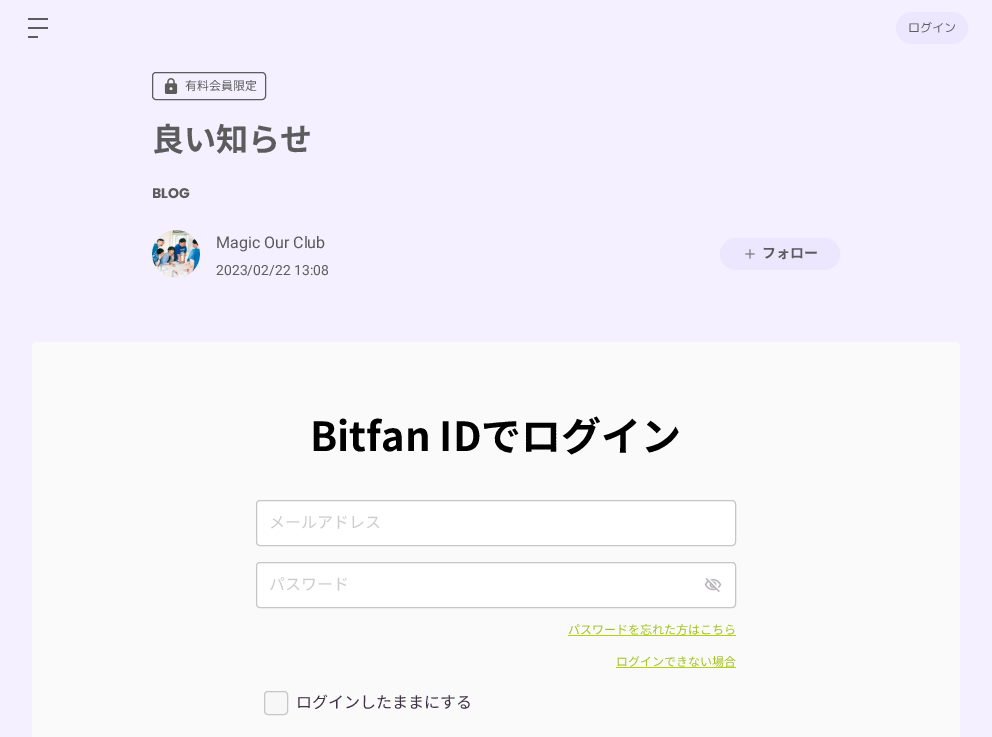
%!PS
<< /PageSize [992 737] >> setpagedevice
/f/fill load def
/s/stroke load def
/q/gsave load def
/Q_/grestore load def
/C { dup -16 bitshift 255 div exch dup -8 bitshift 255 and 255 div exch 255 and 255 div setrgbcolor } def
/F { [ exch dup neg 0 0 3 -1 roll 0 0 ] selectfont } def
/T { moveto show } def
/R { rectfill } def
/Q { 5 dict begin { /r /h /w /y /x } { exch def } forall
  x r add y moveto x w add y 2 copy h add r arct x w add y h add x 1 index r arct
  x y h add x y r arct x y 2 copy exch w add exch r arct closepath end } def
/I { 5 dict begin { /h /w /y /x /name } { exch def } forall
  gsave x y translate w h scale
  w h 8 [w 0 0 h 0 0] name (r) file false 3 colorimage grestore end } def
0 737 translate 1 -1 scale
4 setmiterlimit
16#F4F0FF C
0 0 992 737 R
16#5C5C5C C
28 18 20 2 R
28 27 20 2 R
28 36 10 2 R
16#EDE6FF C
896 12 72 32 16 Q f
/MPLUS1p-Regular 12 F
16#5C5C5C C
(ログイン) 908 32 T
152.5 72.5 113 27 3.5 Q s
(1.rgb) 164 78 14 16 I
/NotoSansJP-Regular 12 F
(有料会員限定) 185 90 T
/NotoSansJP-Bold 32 F
(良い知らせ) 152 151 T
/Poppins-Bold 14 F
(BLOG) 152 198 T
(2.rgb) 152 230 48 48 I
/Roboto-Regular 16 F
(Magic Our Club) 216 248 T
/Roboto-Regular 14 F
(2023/02/22 13:08) 216 275 T
16#EDE6FF C
720 238 120 32 16 Q f
(3.rgb) 745 249 10 10 I
/NotoSansJP-Bold 14 F
16#5C5C5C C
(フォロー) 762 258 T
16#FAFAFA C
32 342 928 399 4 Q f
/NotoSansJP-Bold 40 F
16#000000 C
(Bitfan IDでログイン) 310 451 T
16#FFFFFF C
256.5 500.5 479 45 3.5 Q q f Q_
16#C6C6C6 C
s
/NotoSansJP-Regular 16 F
16#CCCCCC C
(メールアドレス) 269 528 T
16#FFFFFF C
256.5 562.5 479 45 3.5 Q q f Q_
16#C6C6C6 C
s
16#CCCCCC C
(パスワード) 269 590 T
(4.rgb) 704 578 18 14 I
/NotoSansJP-Regular 12 F
16#A2C223 C
(パスワードを忘れた方はこちら) 568 634 T
16#B8D200 C
568 635 168 1 R
16#A2C223 C
(ログインできない場合) 616 666 T
16#B8D200 C
616 667 120 1 R
16#F7F7F7 C
264.5 691.5 23 23 3.5 Q q f Q_
16#C6C6C6 C
s
/NotoSansJP-Regular 16 F
16#3D3343 C
(ログインしたままにする) 296 708 T
showpage
